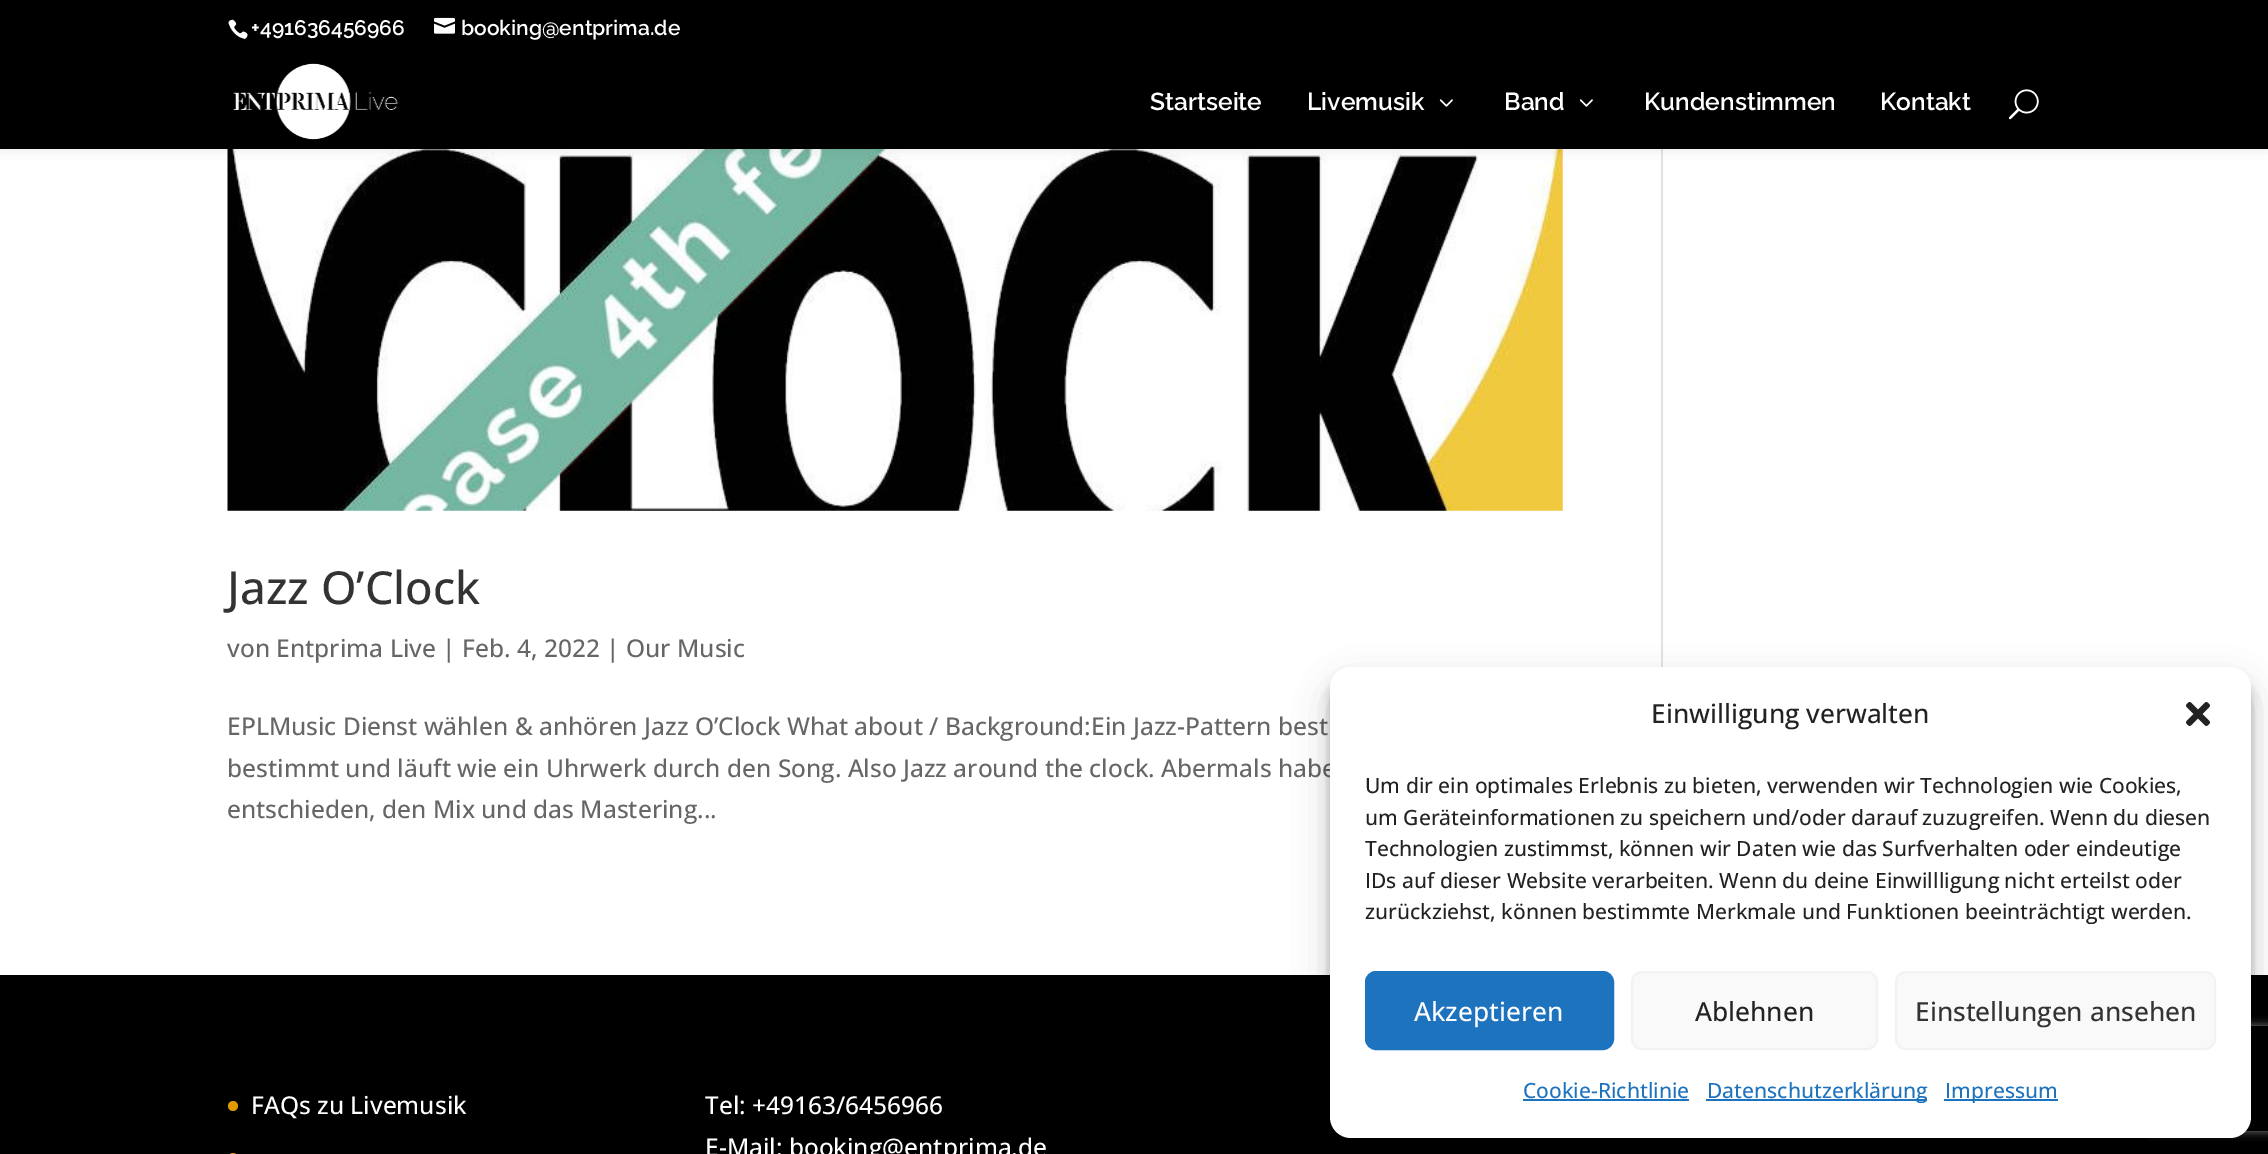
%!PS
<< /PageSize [2268 1154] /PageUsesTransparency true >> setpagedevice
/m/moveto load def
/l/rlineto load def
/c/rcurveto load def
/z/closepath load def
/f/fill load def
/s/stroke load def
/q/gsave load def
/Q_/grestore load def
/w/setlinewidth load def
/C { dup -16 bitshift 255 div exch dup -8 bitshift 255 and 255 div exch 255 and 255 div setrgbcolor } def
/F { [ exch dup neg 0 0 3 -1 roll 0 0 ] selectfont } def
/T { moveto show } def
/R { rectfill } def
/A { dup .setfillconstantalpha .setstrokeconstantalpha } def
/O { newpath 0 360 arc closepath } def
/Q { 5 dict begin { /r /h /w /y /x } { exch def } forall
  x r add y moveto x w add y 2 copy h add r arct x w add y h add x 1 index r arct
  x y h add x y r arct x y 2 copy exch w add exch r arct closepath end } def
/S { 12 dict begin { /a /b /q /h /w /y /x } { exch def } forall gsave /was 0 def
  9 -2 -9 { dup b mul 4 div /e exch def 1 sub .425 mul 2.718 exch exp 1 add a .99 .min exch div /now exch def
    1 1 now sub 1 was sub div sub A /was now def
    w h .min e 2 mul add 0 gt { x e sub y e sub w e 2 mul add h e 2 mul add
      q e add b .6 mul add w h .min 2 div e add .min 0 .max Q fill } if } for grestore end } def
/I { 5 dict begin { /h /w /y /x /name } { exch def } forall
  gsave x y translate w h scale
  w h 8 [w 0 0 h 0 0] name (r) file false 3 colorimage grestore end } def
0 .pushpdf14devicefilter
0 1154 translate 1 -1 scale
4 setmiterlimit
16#000000 C
0 0 2268 1154 R
16#FFFFFF C
0 149 2268 826 R
16#E2E2E2 C
1661 149 2 518 R
(6.rgb) 227 149 1336 362 I
16#000000 C
0 54 2268 95 0 6 .1 S
(1.rgb) 228 19 20 20 I
/Raleway-Thin 21 F
16#FFFFFF C
(+491636456966) 251 35 T
(2.rgb) 434 17 21 17 I
(booking@entprima.de) 461 35 T
(3.rgb) 233 63 165 77 I
/Raleway-Thin 24.5 F
(Startseite) 1150 110 T
(Livemusik) 1307 110 T
(4.rgb) 1439 99 14 8 I
(Band) 1504 110 T
(4.rgb) 1579 99 14 8 I
(Kundenstimmen) 1644 110 T
(Kontakt) 1880 110 T
(5.rgb) 2008 89 31 31 I
/OpenSans-Medium 45.5 F
16#333333 C
(Jazz O’Clock) 227 604 T
/OpenSans-Medium 24.5 F
16#666666 C
(von Entprima Live | Feb. 4, 2022 | Our Music) 227 657 T
(EPLMusic Dienst wählen & anhören Jazz O’Clock What about / Background:Ein Jazz-Pattern best) 227 735 T
(bestimmt und läuft wie ein Uhrwerk durch den Song. Also Jazz around the clock. Abermals habe) 227 777 T
(entschieden, den Mix und das Mastering...) 227 818 T
16#E09900 C
233 1106 5 O f
16#FFFFFF C
(FAQs zu Livemusik) 251 1114 T
16#E09900 C
228 1153 10 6 5 Q f
16#FFFFFF C
(Tel: +49163/6456966) 705 1114 T
(E-Mail: booking@entprima.de) 705 1156 T
16#000000 C
1330 677 921 471 21 5 .23 S
1330 684 921 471 21 17.5 .19 S
q
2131 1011 m 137 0 l 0 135 l -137 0 l z 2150 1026 m 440 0 l 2 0 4 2 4 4 c 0 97 l 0 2 -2 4 -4 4 c -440 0 l -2 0 -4 -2 -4 -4 c 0 -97 l 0 -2 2 -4 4 -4 c z eoclip newpath
16#808080 C
2146 1026 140 105 4 4.5 1 S
Q_
16#FFFFFF C
1330 667 921 471 21 Q f
/OpenSans-Medium 26.25 F
16#222222 C
(Einwilligung verwalten) 1651 723 T
(7.rgb) 2186 702 24 24 I
/OpenSans-Medium 21 F
(Um dir ein optimales Erlebnis zu bieten, verwenden wir Technologien wie Cookies,) 1365 793 T
(um Geräteinformationen zu speichern und/oder darauf zuzugreifen. Wenn du diesen) 1365 825 T
(Technologien zustimmst, können wir Daten wie das Surfverhalten oder eindeutige) 1365 856 T
(IDs auf dieser Website verarbeiten. Wenn du deine Einwillligung nicht erteilst oder) 1365 888 T
(zurückziehst, können bestimmte Merkmale und Funktionen beeinträchtigt werden.) 1365 919 T
16#1E73BE C
1366 972 247 77 10 Q q f Q_
2 w
s
/OpenSans-Medium 26.25 F
16#FFFFFF C
(Akzeptieren) 1414 1021 T
16#F9F9F9 C
1632 972 245 77 10 Q q f Q_
16#F2F2F2 C
s
16#222222 C
(Ablehnen) 1695 1021 T
16#F9F9F9 C
1896 972 319 77 10 Q q f Q_
16#F2F2F2 C
s
16#333333 C
(Einstellungen ansehen) 1915 1021 T
/OpenSans-Medium 21 F
16#1E73BE C
(Cookie-Richtlinie) 1523 1098 T
1523 1099 166 2 R
1706 1099 221 2 R
(Datenschutzerklärung) 1707 1098 T
1944 1099 114 2 R
(Impressum) 1945 1098 T
.poppdf14devicefilter showpage
